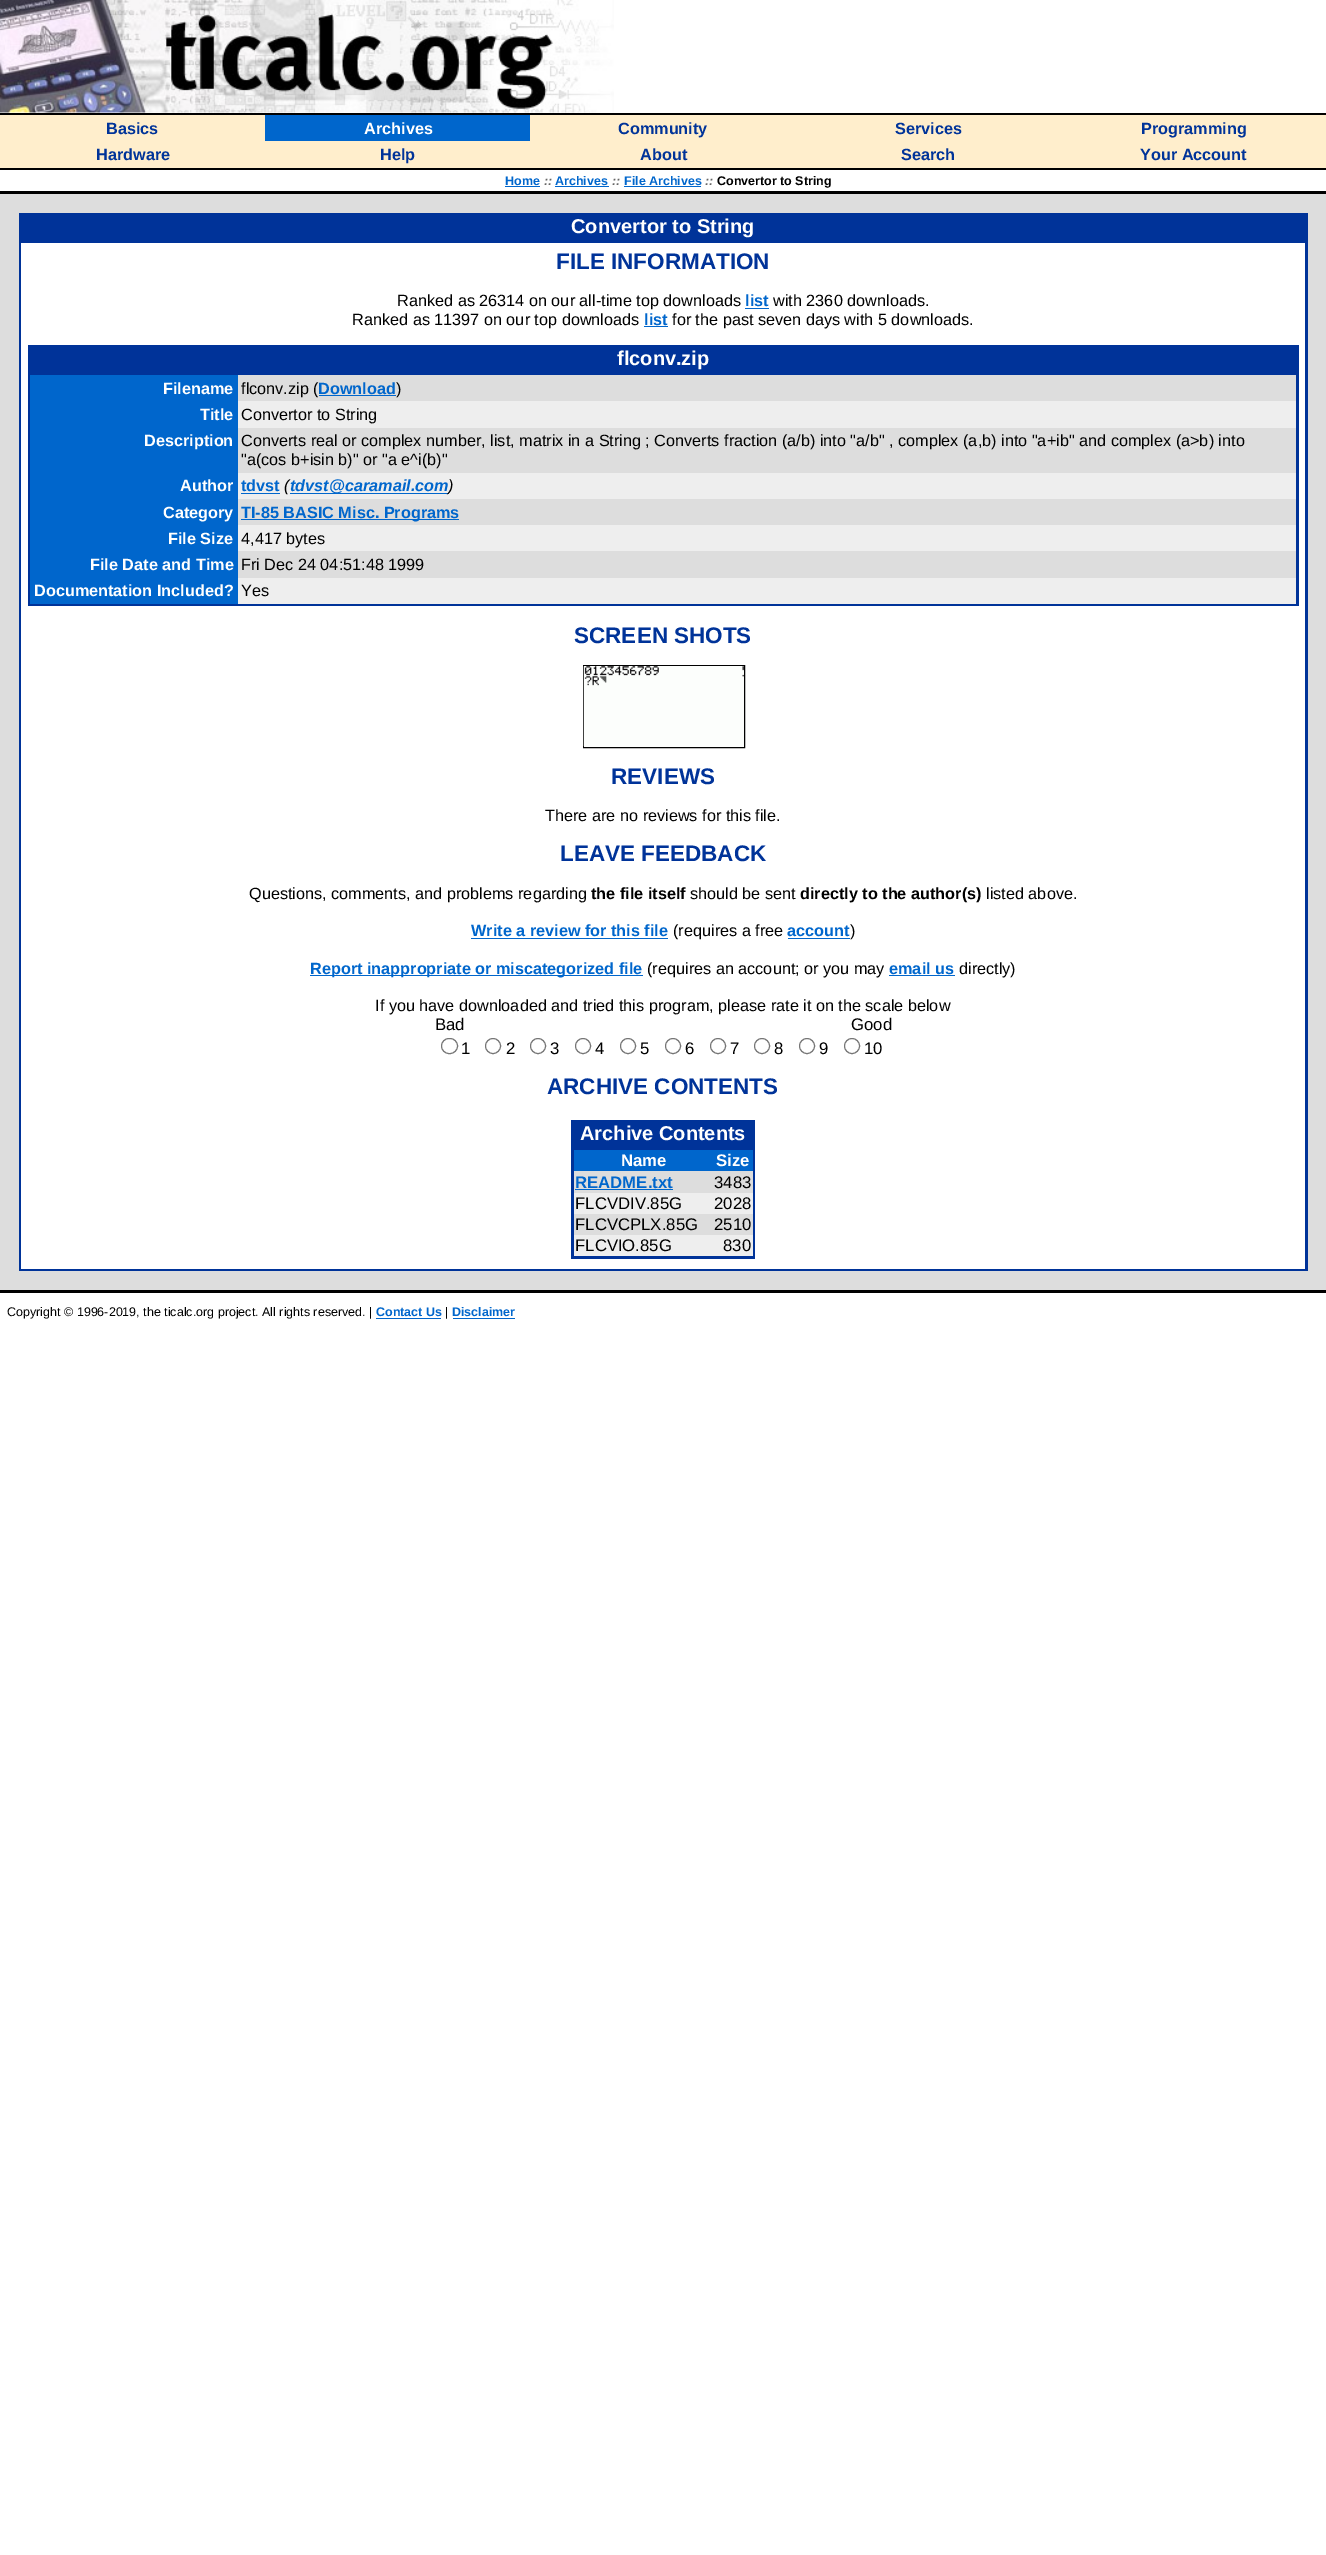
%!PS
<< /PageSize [1326 2555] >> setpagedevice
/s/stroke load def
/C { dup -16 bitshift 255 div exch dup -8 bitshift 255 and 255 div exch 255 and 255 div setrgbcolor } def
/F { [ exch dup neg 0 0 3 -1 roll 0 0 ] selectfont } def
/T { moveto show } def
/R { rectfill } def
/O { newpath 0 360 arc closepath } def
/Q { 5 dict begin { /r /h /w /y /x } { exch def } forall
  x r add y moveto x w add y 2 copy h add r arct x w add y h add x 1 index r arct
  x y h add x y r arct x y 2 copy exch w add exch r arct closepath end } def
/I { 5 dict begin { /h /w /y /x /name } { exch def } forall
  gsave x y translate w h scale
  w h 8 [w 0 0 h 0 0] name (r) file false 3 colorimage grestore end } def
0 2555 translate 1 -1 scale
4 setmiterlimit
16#FFFFFF C
0 0 1326 2555 R
(1.rgb) 0 0 614 113 I
16#000000 C
0 113 1326 2 R
16#FFEECC C
0 115 1326 53 R
/LiberationSans-Bold 16.25 F
16#003399 C
(Basics) 106 134 T
16#0066CC C
265 115 265 26 R
16#FFFFFF C
(Archives) 364 134 T
16#003399 C
(Community) 618 134 T
(Services) 895 134 T
(Programming) 1141 134 T
(Hardware) 96 160 T
(Help) 380 160 T
(About) 640 160 T
(Search) 901 160 T
(Your Account) 1140 160 T
16#000000 C
0 168 1326 2 R
/LiberationSans-Bold 12.5 F
16#0066CC C
(Home) 505 185 T
505 186 35 1 R
/LiberationSans-BoldItalic 12.5 F
16#666666 C
(::) 544 185 T
/LiberationSans-Bold 12.5 F
16#0066CC C
(Archives) 555 185 T
555 186 54 1 R
/LiberationSans-BoldItalic 12.5 F
16#666666 C
(::) 612 185 T
/LiberationSans-Bold 12.5 F
16#0066CC C
(File Archives) 624 185 T
624 186 77 1 R
/LiberationSans-BoldItalic 12.5 F
16#666666 C
(::) 705 185 T
/LiberationSans-Bold 12.5 F
16#000000 C
(Convertor to String) 717 185 T
0 191 1326 3 R
16#DDDDDD C
0 194 1326 1096 R
16#003399 C
19 213 1289 1058 R
/LiberationSans-Bold 20 F
16#FFFFFF C
(Convertor to String) 571 233 T
21 243 1284 1026 R
/LiberationSans-Bold 22.5 F
16#003399 C
(FILE INFORMATION) 556 269 T
/LiberationSans-Regular 16.25 F
16#000000 C
(Ranked as 26314 on our all-time top downloads) 397 306 T
/LiberationSans-Bold 16.25 F
16#0066CC C
(list) 745 306 T
745 308 24 1 R
/LiberationSans-Regular 16.25 F
16#000000 C
(with 2360 downloads.) 773 306 T
(Ranked as 11397 on our top downloads) 352 325 T
/LiberationSans-Bold 16.25 F
16#0066CC C
(list) 644 325 T
644 326 24 1 R
/LiberationSans-Regular 16.25 F
16#000000 C
(for the past seven days with 5 downloads.) 672 325 T
16#003399 C
28 345 1271 261 R
/LiberationSans-Bold 20 F
16#FFFFFF C
(flconv.zip) 617 365 T
16#0066CC C
30 375 208 229 R
/LiberationSans-Bold 16.25 F
16#FFFFFF C
(Filename) 163 394 T
16#DDDDDD C
238 375 1058 26 R
/LiberationSans-Regular 16.25 F
16#000000 C
(flconv.zip \() 241 394 T
16#0066CC C
319 395 77 1 R
/LiberationSans-Bold 16.25 F
(Download) 318 394 T
/LiberationSans-Regular 16.25 F
16#000000 C
(\)) 396 394 T
/LiberationSans-Bold 16.25 F
16#FFFFFF C
(Title) 200 420 T
16#EEEEEE C
238 401 1058 27 R
/LiberationSans-Regular 16.25 F
16#000000 C
(Convertor to String) 241 420 T
/LiberationSans-Bold 16.25 F
16#FFFFFF C
(Description) 144 446 T
16#DDDDDD C
238 428 1058 45 R
/LiberationSans-Regular 16.25 F
16#000000 C
(Converts real or complex number, list, matrix in a String ; Converts fraction \(a/b\) into "a/b" , complex \(a,b\) into "a+ib" and complex \(a>b\) into) 241 446 T
("a\(cos b+isin b\)" or "a e^i\(b\)") 241 465 T
/LiberationSans-Bold 16.25 F
16#FFFFFF C
(Author) 180 491 T
16#EEEEEE C
238 473 1058 26 R
16#0066CC C
(tdvst) 241 491 T
241 493 39 1 R
/LiberationSans-Italic 16.25 F
16#000000 C
(\() 284 491 T
16#0066CC C
290 493 159 1 R
/LiberationSans-BoldItalic 16.25 F
(tdvst@caramail.com) 290 491 T
/LiberationSans-Italic 16.25 F
16#000000 C
(\)) 448 491 T
/LiberationSans-Bold 16.25 F
16#FFFFFF C
(Category) 163 518 T
16#DDDDDD C
238 499 1058 26 R
16#0066CC C
241 519 218 1 R
(TI-85 BASIC Misc. Programs) 241 518 T
16#FFFFFF C
(File Size) 168 544 T
16#EEEEEE C
238 525 1058 26 R
/LiberationSans-Regular 16.25 F
16#000000 C
(4,417 bytes) 241 544 T
/LiberationSans-Bold 16.25 F
16#FFFFFF C
(File Date and Time) 90 570 T
16#DDDDDD C
238 551 1058 27 R
/LiberationSans-Regular 16.25 F
16#000000 C
(Fri Dec 24 04:51:48 1999) 241 570 T
/LiberationSans-Bold 16.25 F
16#FFFFFF C
(Documentation Included?) 34 596 T
16#EEEEEE C
238 578 1058 26 R
/LiberationSans-Regular 16.25 F
16#000000 C
(Yes) 241 596 T
/LiberationSans-Bold 22.5 F
16#003399 C
(SCREEN SHOTS) 574 643 T
16#000000 C
583.5 665.5 161 82 rectstroke
(2.rgb) 583 666 161 81 I
16#003399 C
(REVIEWS) 611 784 T
/LiberationSans-Regular 16.25 F
16#000000 C
(There are no reviews for this file.) 545 821 T
/LiberationSans-Bold 22.5 F
16#003399 C
(LEAVE FEEDBACK) 560 861 T
/LiberationSans-Regular 16.25 F
16#000000 C
(Questions, comments, and problems regarding) 249 899 T
/LiberationSans-Bold 16.25 F
(the file itself) 591 899 T
/LiberationSans-Regular 16.25 F
(should be sent) 690 899 T
/LiberationSans-Bold 16.25 F
(directly to the author\(s\)) 800 899 T
/LiberationSans-Regular 16.25 F
(listed above.) 986 899 T
/LiberationSans-Bold 16.25 F
16#0066CC C
(Write a review for this file) 471 936 T
471 938 197 1 R
/LiberationSans-Regular 16.25 F
16#000000 C
(\(requires a free) 673 936 T
/LiberationSans-Bold 16.25 F
16#0066CC C
(account) 787 936 T
788 938 62 1 R
/LiberationSans-Regular 16.25 F
16#000000 C
(\)) 850 936 T
16#0066CC C
310 975 333 1 R
/LiberationSans-Bold 16.25 F
(Report inappropriate or miscategorized file) 310 974 T
/LiberationSans-Regular 16.25 F
16#000000 C
(\(requires an account; or you may) 647 974 T
/LiberationSans-Bold 16.25 F
16#0066CC C
(email us) 889 974 T
889 975 66 1 R
/LiberationSans-Regular 16.25 F
16#000000 C
(directly\)) 959 974 T
(If you have downloaded and tried this program, please rate it on the scale below) 375 1011 T
/LiberationSans-Regular 16.75 F
(Bad) 435 1030 T
(Good) 851 1030 T
16#767676 C
441.5 1038.5 16 15 7.5 Q s
16#000000 C
(1) 461 1054 T
16#767676 C
493 1046 7.5 O s
16#000000 C
(2) 506 1054 T
16#767676 C
538 1046 7.5 O s
16#000000 C
(3) 550 1054 T
16#767676 C
583 1046 7.5 O s
16#000000 C
(4) 595 1054 T
16#767676 C
628 1046 7.5 O s
16#000000 C
(5) 640 1054 T
16#767676 C
673 1046 7.5 O s
16#000000 C
(6) 685 1054 T
16#767676 C
718 1046 7.5 O s
16#000000 C
(7) 730 1054 T
16#767676 C
762 1046 7.5 O s
16#000000 C
(8) 774 1054 T
16#767676 C
807 1046 7.5 O s
16#000000 C
(9) 819 1054 T
16#767676 C
852 1046 7.5 O s
16#000000 C
(10) 864 1054 T
/LiberationSans-Bold 22.5 F
16#003399 C
(ARCHIVE CONTENTS) 547 1094 T
571 1120 184 139 R
/LiberationSans-Bold 20 F
16#FFFFFF C
(Archive Contents) 580 1140 T
16#0066CC C
574 1150 179 21 R
/LiberationSans-Bold 16.75 F
16#FFFFFF C
(Name) 621 1166 T
(Size) 716 1166 T
16#DDDDDD C
574 1171 179 22 R
16#0066CC C
(README.txt) 575 1188 T
575 1189 98 1 R
/LiberationSans-Regular 16.75 F
16#000000 C
(3483) 714 1188 T
16#EEEEEE C
574 1193 179 21 R
16#000000 C
(FLCVDIV.85G) 575 1209 T
(2028) 714 1209 T
16#DDDDDD C
574 1214 179 21 R
16#000000 C
(FLCVCPLX.85G) 575 1230 T
(2510) 714 1230 T
16#EEEEEE C
574 1235 179 21 R
16#000000 C
(FLCVIO.85G) 575 1251 T
(830) 723 1251 T
0 1290 1326 3 R
/LiberationSans-Regular 12.5 F
(Copyright © 1996-2019, the ticalc.org project. All rights reserved. |) 7 1316 T
/LiberationSans-Bold 12.5 F
16#0066CC C
(Contact Us) 376 1316 T
376 1318 65 1 R
/LiberationSans-Regular 12.5 F
16#000000 C
(|) 445 1316 T
/LiberationSans-Bold 12.5 F
16#0066CC C
(Disclaimer) 452 1316 T
453 1318 62 1 R
showpage
